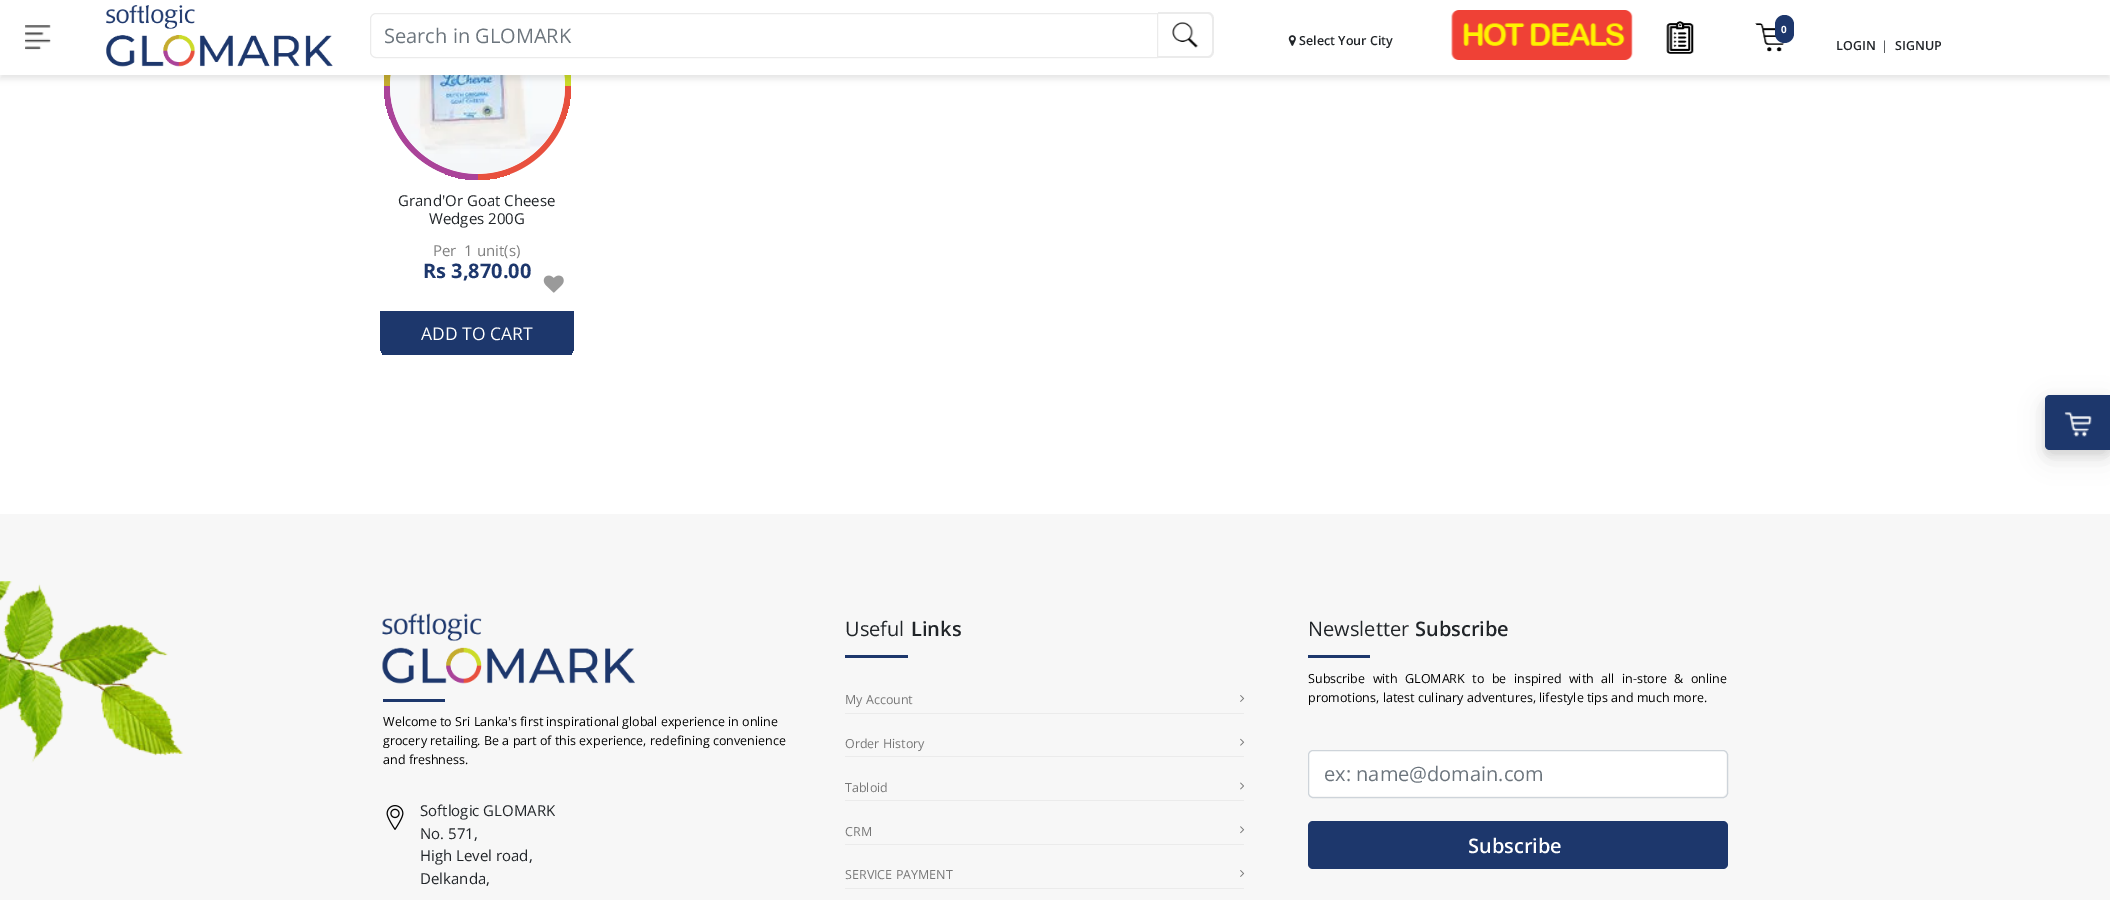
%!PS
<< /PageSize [2110 900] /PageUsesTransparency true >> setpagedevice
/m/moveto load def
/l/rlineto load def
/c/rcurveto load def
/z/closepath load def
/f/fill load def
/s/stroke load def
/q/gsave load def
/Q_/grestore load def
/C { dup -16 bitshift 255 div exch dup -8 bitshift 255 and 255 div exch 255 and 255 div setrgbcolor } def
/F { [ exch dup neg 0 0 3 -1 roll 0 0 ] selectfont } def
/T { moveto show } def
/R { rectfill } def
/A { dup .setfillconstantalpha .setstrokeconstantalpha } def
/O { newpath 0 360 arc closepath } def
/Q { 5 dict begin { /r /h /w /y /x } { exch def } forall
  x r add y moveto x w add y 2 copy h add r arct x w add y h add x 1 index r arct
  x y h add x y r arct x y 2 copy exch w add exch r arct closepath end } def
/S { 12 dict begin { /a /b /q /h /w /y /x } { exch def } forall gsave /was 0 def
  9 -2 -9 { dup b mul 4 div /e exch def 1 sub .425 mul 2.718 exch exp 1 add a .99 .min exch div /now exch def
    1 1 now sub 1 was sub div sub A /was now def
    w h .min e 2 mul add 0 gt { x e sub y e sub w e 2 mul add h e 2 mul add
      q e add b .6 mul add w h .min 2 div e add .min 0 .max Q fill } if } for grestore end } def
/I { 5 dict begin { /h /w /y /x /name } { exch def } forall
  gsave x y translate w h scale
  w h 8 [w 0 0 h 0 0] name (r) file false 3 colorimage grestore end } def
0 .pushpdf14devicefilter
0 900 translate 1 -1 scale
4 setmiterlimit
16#F7F7F7 C
0 0 2110 900 R
16#FFFFFF C
0 75 2110 439 R
16#F7F6F2 C
477.5 86.5 93.5 O f
q
384 -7 187 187 93.5 Q clip newpath
q 478 86 m 93 0 l 0 94 l -93 0 l z clip newpath
<< /ShadingType 2 /ColorSpace /DeviceRGB /Coords [556 78 492 189] /Extend [true true] /Function << /FunctionType 2 /Domain [0 1] /C0 [.91 .314 .243] /C1 [.91 .314 .243] /N 1 >> >> shfill Q_
q 384 86 m 94 0 l 0 94 l -.5 0 l -51.5 0 -93.5 -42 -93.5 -93.5 c z clip newpath
<< /ShadingType 2 /ColorSpace /DeviceRGB /Coords [486 165 375 101] /Extend [true true] /Function << /FunctionType 2 /Domain [0 1] /C0 [.667 .263 .6] /C1 [.667 .263 .6] /N 1 >> >> shfill Q_
q 564 75 m 7 0 l 0 11 l -7 0 l z clip newpath
<< /ShadingType 2 /ColorSpace /DeviceRGB /Coords [469 7.4 580 71] /Extend [true true] /Function << /FunctionType 2 /Domain [0 1] /C0 [.8 .859 .161] /C1 [.8 .859 .161] /N 1 >> >> shfill Q_
q 384 75 m 7 0 l 0 11 l -7 0 l z clip newpath
<< /ShadingType 2 /ColorSpace /DeviceRGB /Coords [399 95 463 -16] /Extend [true true] /Function << /FunctionType 2 /Domain [0 1] /C0 [.773 .675 .184] /C1 [.773 .675 .184] /N 1 >> >> shfill Q_
Q_
16#FFFFFF C
477.5 86.5 87.5 O f
(8.rgb) 390 75 175 99 I
16#000000 C
0 4 2110 75 0 3 .1 S
16#FFFFFF C
0 0 2110 75 R
(1.rgb) 25 25 26 25 I
(2.rgb) 106 5 227 62 I
16#EBEBEB C
376 13.5 m 781.5 0 l 0 44 l -781.5 0 l -3 0 -5.5 -2.5 -5.5 -5.5 c 0 -33 l 0 -3 2.5 -5.5 5.5 -5.5 c z s
/OpenSans-Regular 20 F
16#6C757D C
(Search in GLOMARK) 384 43 T
16#EBEBEB C
1158 12 m 50 0 l 3 0 6 3 6 7 c 0 32 l 0 4 -3 7 -6 7 c -50 0 l z 1158 14 m 50 0 l 2 0 4 2 4 5 c 0 32 l 0 3 -2 5 -4 5 c -50 0 l z eofill
(3.rgb) 1172 22 27 26 I
(4.rgb) 1451 10 182 50 I
(5.rgb) 1666 21 28 33 I
(6.rgb) 1755 23 30 29 I
16#1D376C C
1775 15 19 28 9.5 Q f
/OpenSans-Bold 10 F
16#FFFFFF C
(0) 1781 33 T
(7.rgb) 1288 35 8 11 I
/OpenSans-SemiBold 12.5 F
16#212529 C
(Select Your City) 1299 45 T
(LOGIN) 1836 50 T
/OpenSans-Regular 12.5 F
(|) 1881 50 T
/OpenSans-SemiBold 12.5 F
(SIGNUP) 1895 50 T
/OpenSans-Regular 15 F
(Grand'Or Goat Cheese) 398 206 T
(Wedges 200G) 429 224 T
16#808080 C
(Per  1 unit\(s\)) 433 256 T
/OpenSans-Bold 20 F
16#1D376C C
(Rs 3,870.00) 423 278 T
q
380 -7 194 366 13 Q clip newpath
380 311 194 44 R
Q_
/OpenSans-Regular 17.5 F
16#FFFFFF C
(ADD TO CART) 421 340 T
(9.rgb) 543 275 21 18 I
16#000000 C
2045 403 65 55 5 12.5 .1 S
2045 400 65 55 5 5 .1 S
16#1D376C C
2050 395 m 60 0 l 0 55 l -60 0 l -3 0 -5 -2 -5 -5 c 0 -45 l 0 -3 2 -5 5 -5 c z f
(10.rgb) 2064 412 28 25 I
(11.rgb) 0 581 184 182 I
(12.rgb) 382 613 253 71 I
383 699 62 3 R
/OpenSans-Regular 12.5 F
16#000000 C
(Welcome to Sri Lanka's first inspirational global experience in online) 383 726 T
(grocery retailing. Be a part of this experience, redefining convenience) 383 745 T
(and freshness.) 383 764 T
(13.rgb) 386 805 18 25 I
/OpenSans-Regular 15 F
16#212529 C
(Softlogic GLOMARK) 420 816 T
(No. 571,) 420 839 T
(High Level road,) 420 861 T
(Delkanda,) 420 884 T
/OpenSans-Regular 20 F
(Useful) 845 636 T
/OpenSans-SemiBold 20 F
(Links) 911 636 T
16#1D376C C
845 655 63 3 R
16#EBEBEB C
845 713 399 1 R
/OpenSans-Regular 12.5 F
16#777777 C
(My Account) 845 704 T
(14.rgb) 1240 695 5 7 I
16#EBEBEB C
845 756 399 1 R
16#777777 C
(Order History) 845 748 T
(15.rgb) 1240 738 5 8 I
16#EBEBEB C
845 800 399 1 R
16#777777 C
(Tabloid) 845 792 T
(16.rgb) 1240 782 4 8 I
16#EBEBEB C
845 844 399 1 R
16#777777 C
(CRM) 845 836 T
(17.rgb) 1240 826 5 8 I
16#EBEBEB C
845 888 399 1 R
16#777777 C
(SERVICE PAYMENT) 845 879 T
(14.rgb) 1240 870 5 7 I
/OpenSans-Regular 20 F
16#212529 C
(Newsletter) 1308 636 T
/OpenSans-SemiBold 20 F
(Subscribe) 1415 636 T
16#1D376C C
1308 655 62 3 R
/OpenSans-Regular 12.5 F
16#000000 C
1308 683 m 4.25 0 32 (Subscribe with GLOMARK to be inspired with all in-store & online) widthshow
(promotions, latest culinary adventures, lifestyle tips and much more.) 1308 702 T
16#FFFFFF C
1309 751 417 45 4 Q f
16#CED4DA C
1308.5 750.5 419 47 4.5 Q s
/OpenSans-Regular 20 F
16#6C757D C
(ex: name@domain.com) 1324 781 T
16#1D376C C
1308 821 420 48 5 Q f
/OpenSans-SemiBold 20 F
16#FFFFFF C
(Subscribe) 1468 853 T
.poppdf14devicefilter showpage
